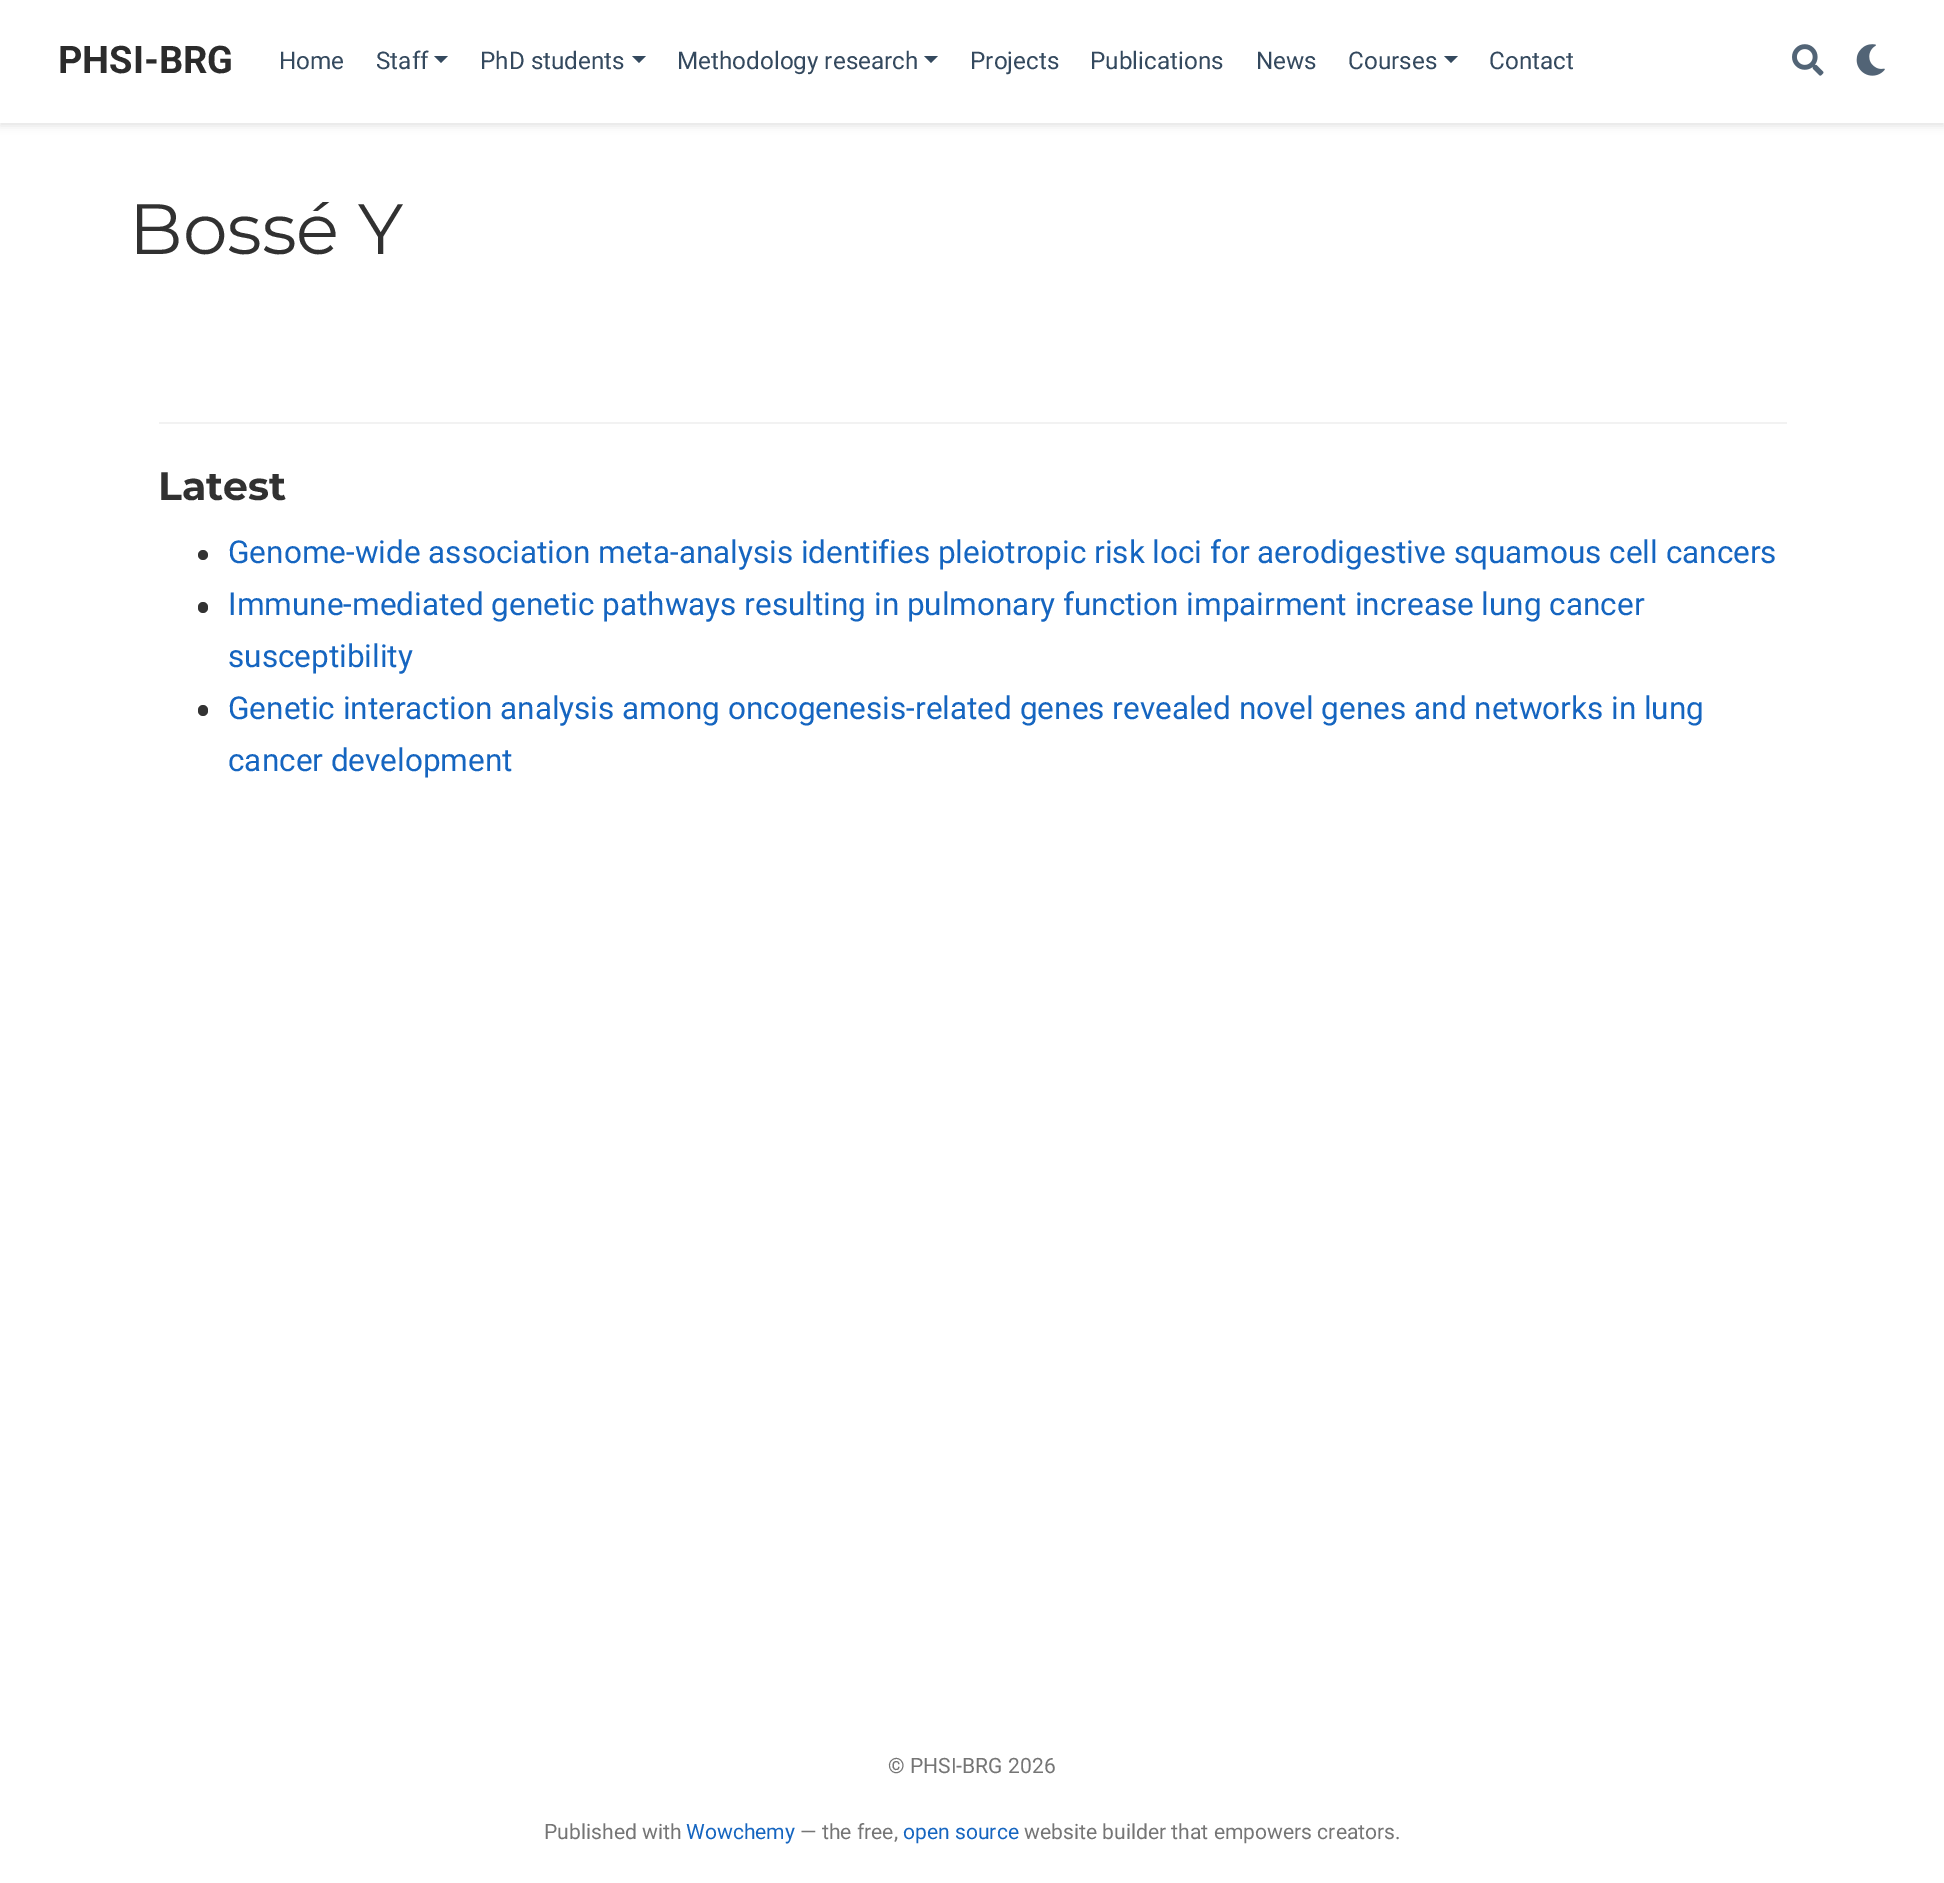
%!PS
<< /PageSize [1944 1883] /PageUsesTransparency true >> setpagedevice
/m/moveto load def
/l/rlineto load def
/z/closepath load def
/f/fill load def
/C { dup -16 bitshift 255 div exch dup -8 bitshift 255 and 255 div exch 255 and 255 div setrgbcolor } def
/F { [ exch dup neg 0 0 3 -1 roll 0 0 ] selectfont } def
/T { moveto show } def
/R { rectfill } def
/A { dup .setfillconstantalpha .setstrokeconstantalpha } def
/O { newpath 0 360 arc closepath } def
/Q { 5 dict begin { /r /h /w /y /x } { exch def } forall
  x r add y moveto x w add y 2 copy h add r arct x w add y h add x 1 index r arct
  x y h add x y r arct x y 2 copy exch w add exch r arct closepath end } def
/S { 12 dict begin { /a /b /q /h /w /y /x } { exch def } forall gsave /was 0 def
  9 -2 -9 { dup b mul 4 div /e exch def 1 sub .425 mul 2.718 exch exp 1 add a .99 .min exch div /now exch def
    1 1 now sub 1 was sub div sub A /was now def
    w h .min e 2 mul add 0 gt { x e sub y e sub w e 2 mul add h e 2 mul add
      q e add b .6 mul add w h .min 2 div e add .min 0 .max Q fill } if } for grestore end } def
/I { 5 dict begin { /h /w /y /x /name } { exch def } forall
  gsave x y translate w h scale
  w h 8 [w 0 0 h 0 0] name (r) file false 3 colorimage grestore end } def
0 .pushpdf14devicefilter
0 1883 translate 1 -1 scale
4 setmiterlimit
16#FFFFFF C
0 0 1944 1883 R
16#000000 C
0 4 1944 122 0 4 .11 S
16#FFFFFF C
0 0 1944 123 R
/Roboto-Bold 38 F
16#2B2B2B C
(PHSI-BRG) 58 73 T
/Roboto-Regular 24.25 F
16#34495E C
(Home) 279 69 T
(Staff) 376 69 T
434 56 m 14 0 l -7 7 l z f
(PhD students) 480 69 T
632 56 m 14 0 l -7 7 l z f
(Methodology research) 677 69 T
924 56 m 14 0 l -7 7 l z f
(Projects) 970 69 T
(Publications) 1090 69 T
(News) 1256 69 T
(Courses) 1348 69 T
1444 56 m 14 0 l -7 7 l z f
(Contact) 1489 69 T
(1.rgb) 1792 44 32 32 I
(2.rgb) 1856 44 29 32 I
/Montserrat-Regular 71 F
16#313131 C
(Bossé Y) 129 254 T
16#F2F2F2 C
159 422 1628 2 R
/Montserrat-Bold 39.5 F
16#313131 C
(Latest) 158 500 T
16#333333 C
203 555 5 O f
/Roboto-Regular 31.5 F
16#1565C0 C
(Genome-wide association meta-analysis identifies pleiotropic risk loci for aerodigestive squamous cell cancers) 228 563 T
16#333333 C
198 602 10 11 5 Q f
16#1565C0 C
(Immune-mediated genetic pathways resulting in pulmonary function impairment increase lung cancer) 228 615 T
(susceptibility) 228 667 T
16#333333 C
198 705 10 11 5 Q f
16#1565C0 C
(Genetic interaction analysis among oncogenesis-related genes revealed novel genes and networks in lung) 228 719 T
(cancer development) 228 771 T
/Roboto-Regular 21.1 F
16#757575 C
(© PHSI-BRG 2026) 888 1773 T
(Published with) 544 1839 T
16#1565C0 C
(Wowchemy) 686 1839 T
16#757575 C
(— the free,) 800 1839 T
16#1565C0 C
(open source) 903 1839 T
16#757575 C
(website builder that empowers creators.) 1024 1839 T
.poppdf14devicefilter showpage
